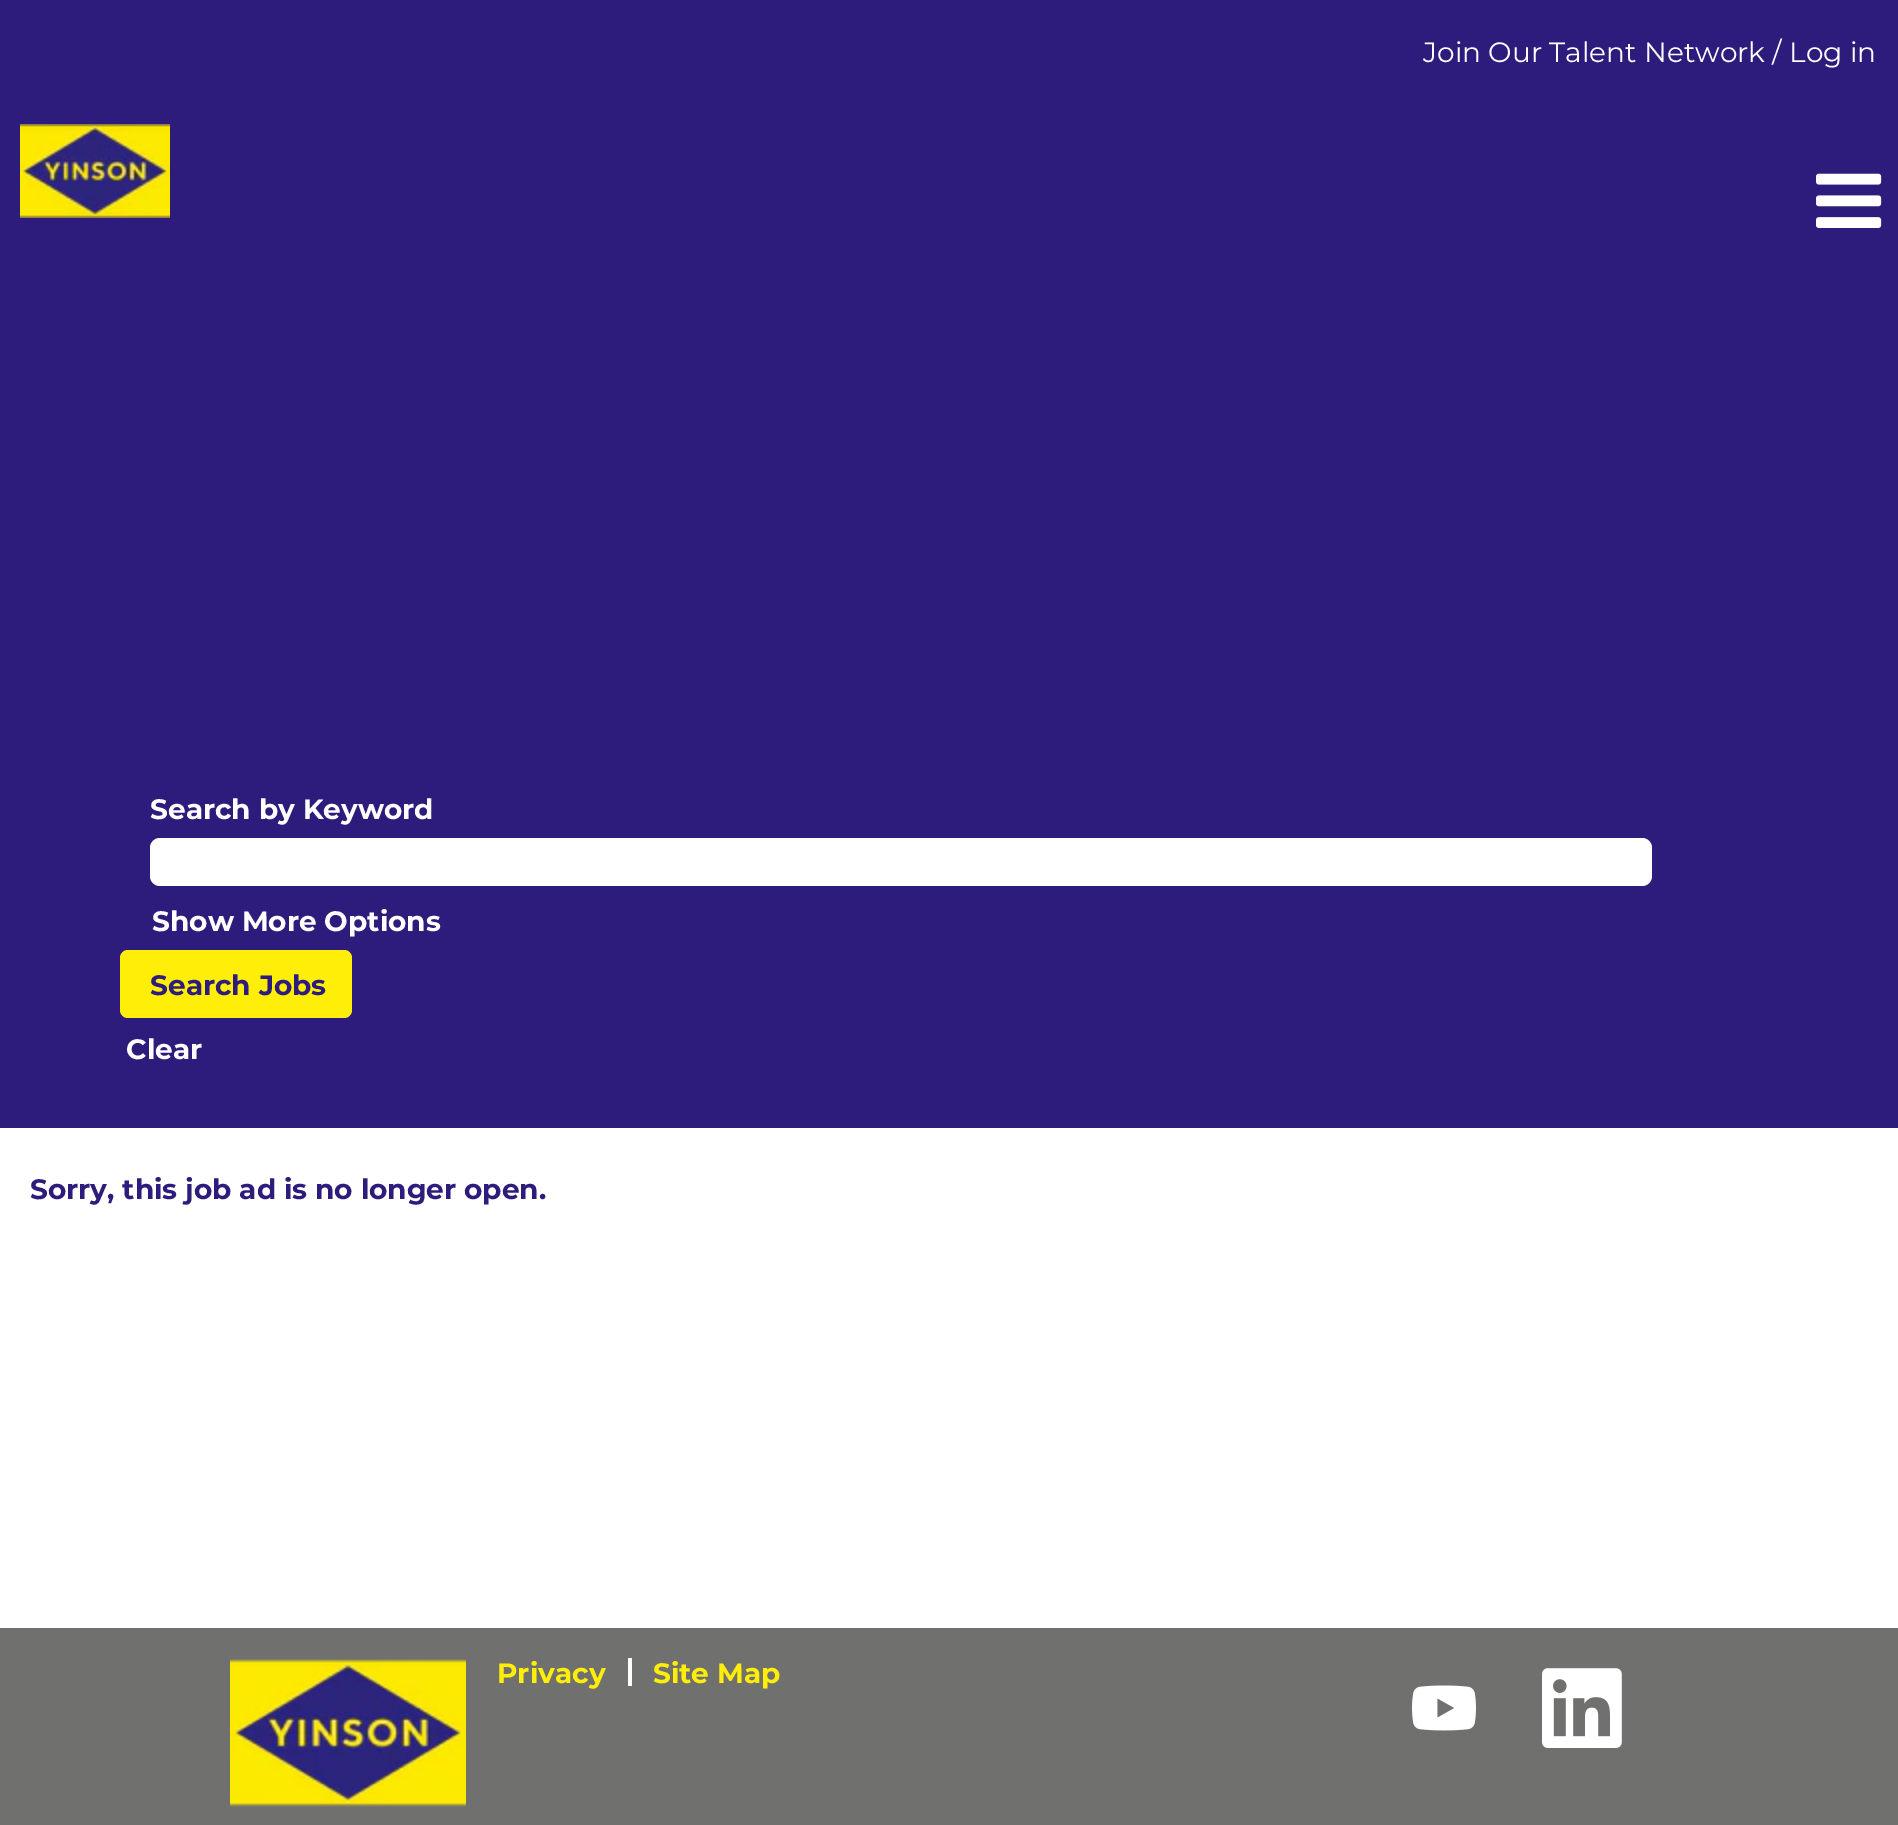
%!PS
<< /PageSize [1898 1825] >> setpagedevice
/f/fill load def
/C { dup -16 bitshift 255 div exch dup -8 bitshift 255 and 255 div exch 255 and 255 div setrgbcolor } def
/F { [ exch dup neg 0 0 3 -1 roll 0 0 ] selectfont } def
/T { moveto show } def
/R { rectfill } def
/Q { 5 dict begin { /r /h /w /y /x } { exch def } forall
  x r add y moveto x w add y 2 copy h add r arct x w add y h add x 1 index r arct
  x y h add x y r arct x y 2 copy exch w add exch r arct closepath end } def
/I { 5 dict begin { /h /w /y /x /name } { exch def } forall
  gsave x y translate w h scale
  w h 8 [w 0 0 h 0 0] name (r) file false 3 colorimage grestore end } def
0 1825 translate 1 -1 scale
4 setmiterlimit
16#2E1C7D C
0 0 1898 1825 R
/Montserrat-Regular 28 F
16#FFFFFF C
(Join Our Talent Network / Log in) 1423 62 T
(1.rgb) 20 124 150 94 I
(2.rgb) 1816 173 66 55 I
0 1128 1898 500 R
/Montserrat-Bold 28 F
(Search by Keyword) 150 819 T
150 838 1502 48 10 Q f
(Show More Options) 152 931 T
16#FFEE08 C
120 950 232 68 8 Q f
16#2E1C7D C
(Search Jobs) 150 995 T
16#FFFFFF C
(Clear) 126 1059 T
16#2E1C7D C
(Sorry, this job ad is no longer open.) 30 1199 T
16#70706F C
0 1628 1898 197 R
(3.rgb) 230 1659 236 148 I
16#FFFFFF C
628 1658 4 28 R
16#FFEE08 C
(Privacy) 497 1683 T
(Site Map) 653 1683 T
(4.rgb) 1412 1685 64 46 I
(5.rgb) 1542 1668 80 80 I
showpage
